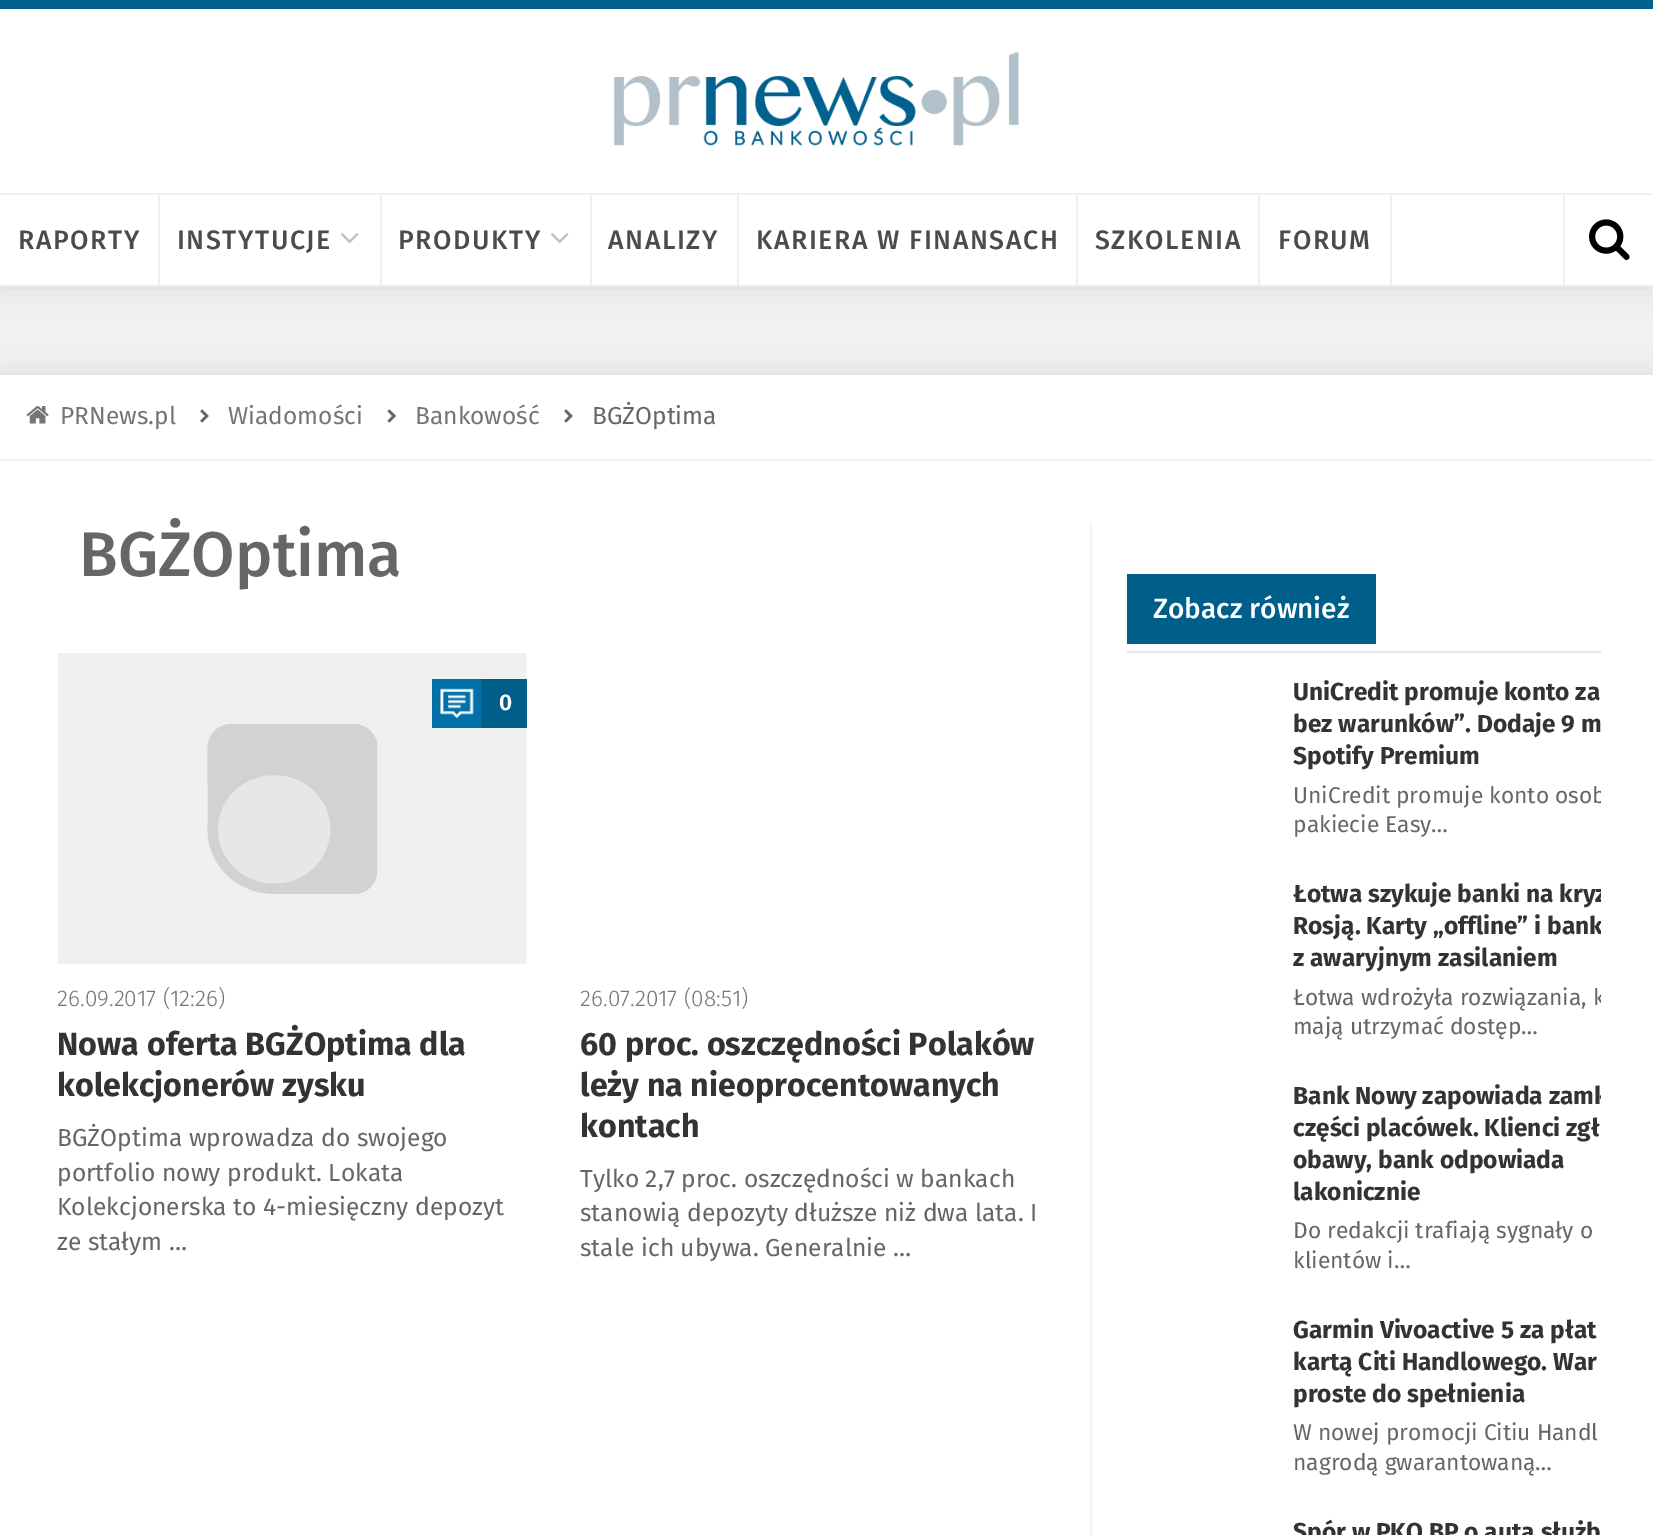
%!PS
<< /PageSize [1653 1535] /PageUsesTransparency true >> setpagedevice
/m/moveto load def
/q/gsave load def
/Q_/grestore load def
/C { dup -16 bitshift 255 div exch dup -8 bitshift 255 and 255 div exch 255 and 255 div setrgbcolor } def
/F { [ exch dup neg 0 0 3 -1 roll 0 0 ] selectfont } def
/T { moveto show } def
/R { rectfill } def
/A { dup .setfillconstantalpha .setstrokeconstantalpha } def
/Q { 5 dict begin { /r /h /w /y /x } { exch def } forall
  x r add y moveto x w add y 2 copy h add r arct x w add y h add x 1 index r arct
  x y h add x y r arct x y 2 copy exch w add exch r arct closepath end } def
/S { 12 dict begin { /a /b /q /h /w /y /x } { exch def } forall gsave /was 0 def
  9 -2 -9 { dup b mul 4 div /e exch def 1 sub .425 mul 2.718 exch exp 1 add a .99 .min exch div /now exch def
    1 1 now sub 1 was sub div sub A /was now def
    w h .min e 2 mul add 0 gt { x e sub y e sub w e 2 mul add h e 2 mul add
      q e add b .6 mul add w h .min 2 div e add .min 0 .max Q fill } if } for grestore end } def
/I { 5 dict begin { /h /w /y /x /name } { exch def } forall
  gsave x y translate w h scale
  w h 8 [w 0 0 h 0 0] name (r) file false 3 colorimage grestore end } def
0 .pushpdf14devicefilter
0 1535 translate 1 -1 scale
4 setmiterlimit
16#F1F1F1 C
0 0 1653 1535 R
16#000000 C
0 0 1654 287 0 13 .1 S
16#FFFFFF C
0 9 1653 276 R
16#00618F C
0 0 1653 9 R
(1.rgb) 614 52 405 94 I
16#ECF0F1 C
0 193 1653 2 R
0 285 1653 2 R
158 194 2 91 R
/FiraSans-Medium 26.6 F
16#4B4B4B C
18 249 m 1.6 0 (RAPORTY) ashow
16#ECF0F1 C
380 194 2 91 R
16#4B4B4B C
177 249 m 1.6 0 (INSTYTUCJE) ashow
(2.rgb) 341 233 18 11 I
16#ECF0F1 C
590 194 2 91 R
16#4B4B4B C
398 249 m 1.6 0 (PRODUKTY) ashow
(2.rgb) 551 233 18 11 I
16#ECF0F1 C
737 194 2 91 R
16#4B4B4B C
608 249 m 1.6 0 (ANALIZY) ashow
16#ECF0F1 C
1076 194 2 91 R
16#4B4B4B C
756 249 m 1.6 0 (KARIERA W FINANSACH) ashow
16#ECF0F1 C
1258 194 2 91 R
16#4B4B4B C
1095 249 m 1.6 0 (SZKOLENIA) ashow
16#ECF0F1 C
1390 194 2 91 R
16#4B4B4B C
1278 249 m 1.6 0 (FORUM) ashow
16#ECF0F1 C
1563 194 2 91 R
(3.rgb) 1589 219 41 41 I
16#000000 C
0 375 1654 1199 0 13 .1 S
16#FFFFFF C
0 375 1653 1160 R
16#ECF0F1 C
0 459 1653 2 R
(4.rgb) 26 406 23 18 I
/FiraSans-Regular 24.5 F
16#757575 C
(PRNews.pl) 60 424 T
(5.rgb) 200 409 9 14 I
(Wiadomości) 228 424 T
(6.rgb) 387 409 9 14 I
(Bankowość) 415 424 T
(5.rgb) 564 409 9 14 I
16#666666 C
(BGŻOptima) 592 424 T
/FiraSans-Medium 63 F
(BGŻOptima) 79 576 T
(7.rgb) 58 653 469 311 I
16#005E8A C
432 679 95 49 R
(8.rgb) 432 679 50 49 I
/FiraSans-SemiBold 22.75 F
16#FFFFFF C
(0) 499 710 T
/FiraSans-Light 22.75 F
16#757575 C
(26.09.2017 \(12:26\)) 57 1006 T
/FiraSans-Bold 32.25 F
16#333333 C
(Nowa oferta BGŻOptima dla) 57 1055 T
(kolekcjonerów zysku) 57 1096 T
/FiraSans-Regular 24.6 F
16#666666 C
(BGŻOptima wprowadza do swojego) 57 1146 T
(portfolio nowy produkt. Lokata) 57 1181 T
(Kolekcjonerska to 4-miesięczny depozyt) 57 1215 T
(ze stałym …) 57 1250 T
/FiraSans-Light 22.75 F
16#757575 C
(26.07.2017 \(08:51\)) 580 1006 T
/FiraSans-Bold 32.25 F
16#333333 C
(60 proc. oszczędności Polaków) 580 1055 T
(leży na nieoprocentowanych) 580 1096 T
(kontach) 580 1137 T
/FiraSans-Regular 24.6 F
16#666666 C
(Tylko 2,7 proc. oszczędności w bankach) 580 1187 T
(stanowią depozyty dłuższe niż dwa lata. I) 580 1221 T
(stale ich ubywa. Generalnie …) 580 1256 T
16#F3F3F3 C
1090 522 2 1013 R
16#E6E6E6 C
1127 651 474 2 R
16#005E8A C
1127 574 249 70 R
/FiraSans-Medium 28 F
16#FFFFFF C
(Zobacz również) 1153 618 T
/FiraSans-Bold 24.5 F
16#333333 C
(UniCredit promuje konto za) 1293 700 T
(bez warunków”. Dodaje 9 m) 1293 732 T
(Spotify Premium) 1293 764 T
q
1127 653 474 201 rectclip
/FiraSans-Regular 22.75 F
16#666666 C
(UniCredit promuje konto osob) 1293 803 T
Q_
/FiraSans-Regular 22.75 F
16#666666 C
(pakiecie Easy…) 1293 832 T
q
1127 854 474 203 rectclip
/FiraSans-Bold 24.5 F
16#333333 C
(Łotwa szykuje banki na kryz) 1293 902 T
(Rosją. Karty „offline” i bank) 1293 934 T
Q_
/FiraSans-Bold 24.5 F
16#333333 C
(z awaryjnym zasilaniem) 1293 966 T
q
1127 854 474 203 rectclip
/FiraSans-Regular 22.75 F
16#666666 C
(Łotwa wdrożyła rozwiązania, k) 1293 1005 T
Q_
/FiraSans-Regular 22.75 F
16#666666 C
(mają utrzymać dostęp…) 1293 1034 T
q
1127 1057 474 233 rectclip
/FiraSans-Bold 24.5 F
16#333333 C
(Bank Nowy zapowiada zamk) 1293 1104 T
Q_
/FiraSans-Bold 24.5 F
16#333333 C
(części placówek. Klienci zgł) 1293 1136 T
(obawy, bank odpowiada) 1293 1168 T
(lakonicznie) 1293 1200 T
/FiraSans-Regular 22.75 F
16#666666 C
(Do redakcji trafiają sygnały o) 1293 1238 T
(klientów i…) 1293 1268 T
/FiraSans-Bold 24.5 F
16#333333 C
(Garmin Vivoactive 5 za płat) 1293 1338 T
(kartą Citi Handlowego. War) 1293 1370 T
(proste do spełnienia) 1293 1402 T
/FiraSans-Regular 22.75 F
16#666666 C
(W nowej promocji Citiu Handl) 1293 1440 T
(nagrodą gwarantowaną…) 1293 1470 T
/FiraSans-Bold 24.5 F
16#333333 C
(Spór w PKO BP o auta służb) 1293 1540 T
.poppdf14devicefilter showpage
